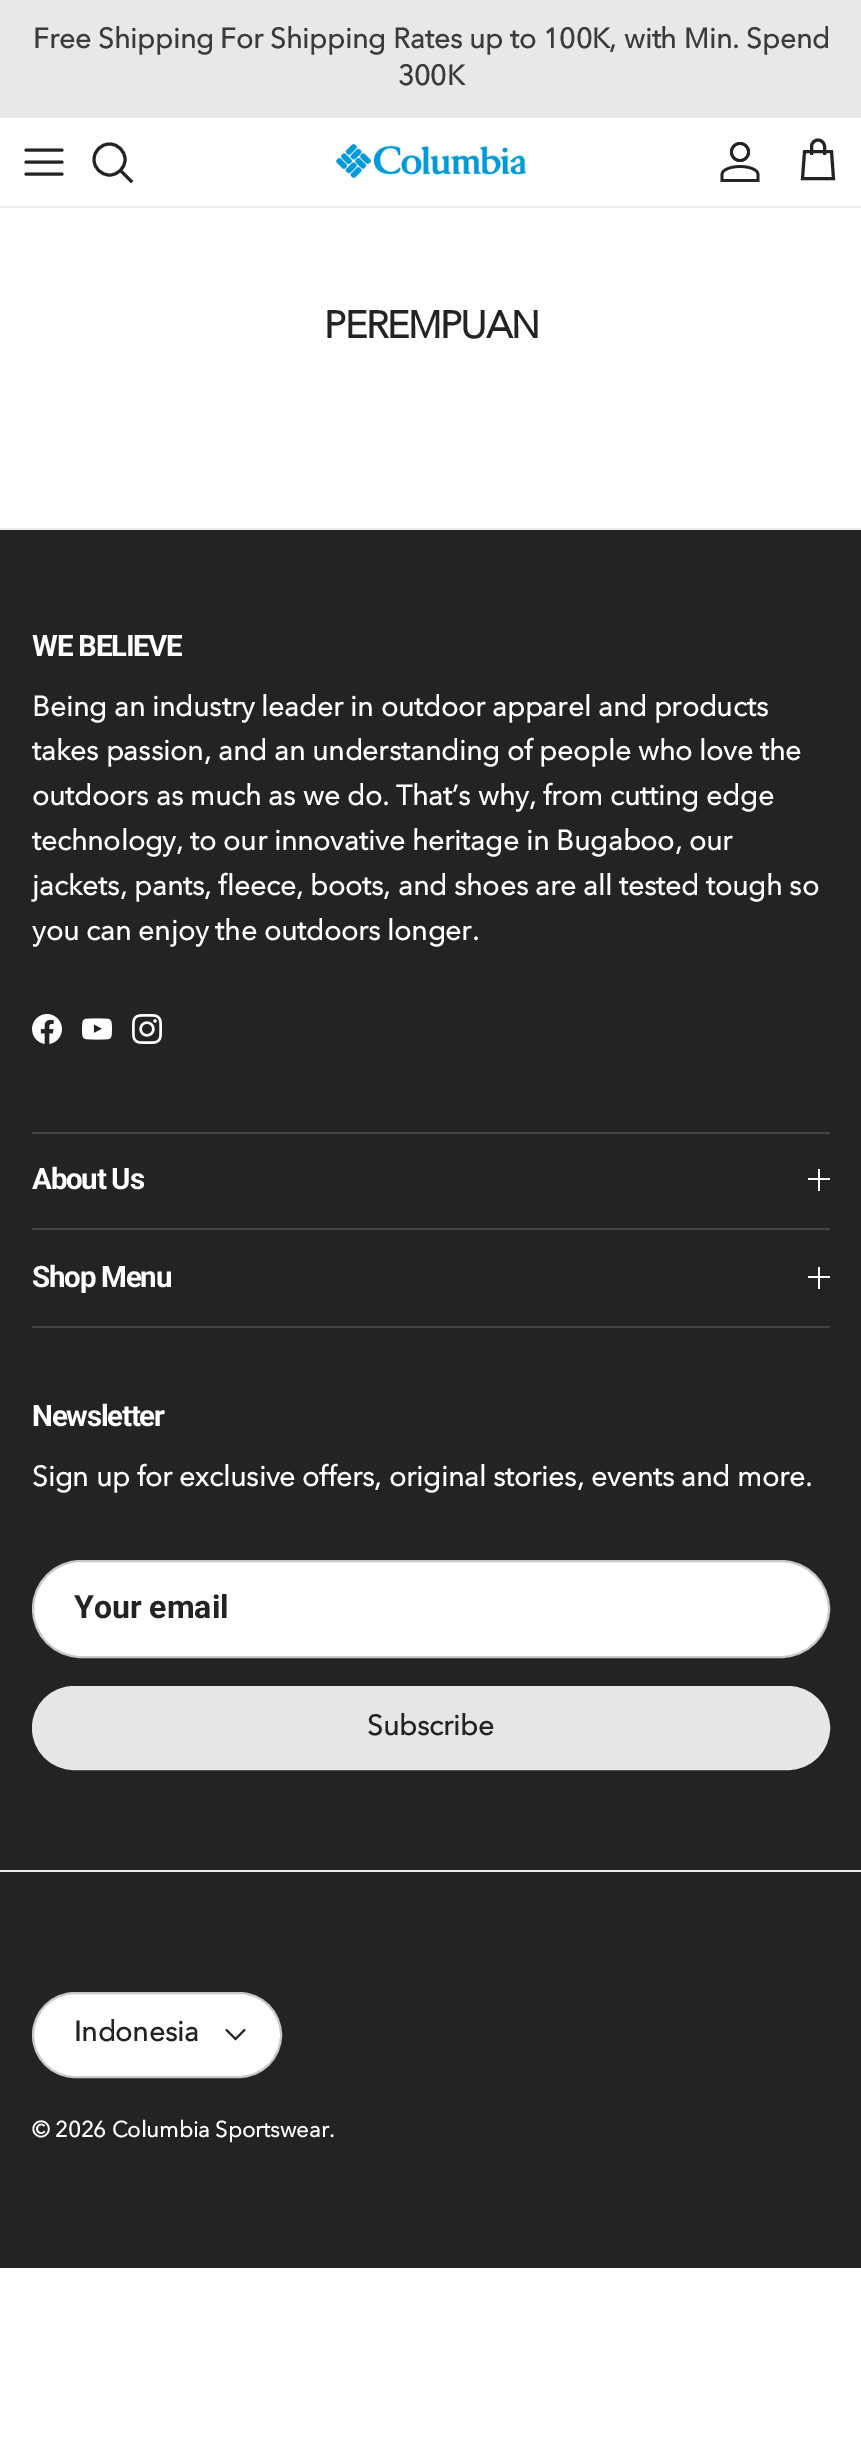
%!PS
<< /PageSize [861 2441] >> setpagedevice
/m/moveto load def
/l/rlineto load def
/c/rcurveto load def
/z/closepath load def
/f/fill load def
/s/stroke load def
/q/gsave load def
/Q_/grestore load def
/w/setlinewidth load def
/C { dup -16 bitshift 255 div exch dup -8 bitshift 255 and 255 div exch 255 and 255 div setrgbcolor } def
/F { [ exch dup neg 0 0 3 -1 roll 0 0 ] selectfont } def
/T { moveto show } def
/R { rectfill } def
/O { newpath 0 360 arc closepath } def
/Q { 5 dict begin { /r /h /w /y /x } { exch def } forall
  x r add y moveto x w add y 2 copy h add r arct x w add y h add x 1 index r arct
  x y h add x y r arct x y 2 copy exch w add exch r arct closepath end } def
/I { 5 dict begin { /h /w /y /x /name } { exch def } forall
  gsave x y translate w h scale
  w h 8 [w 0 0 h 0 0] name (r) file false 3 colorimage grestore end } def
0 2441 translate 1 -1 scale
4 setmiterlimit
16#FFFFFF C
0 0 861 2441 R
16#E8E8E8 C
0 0 861 118 R
/AvenirNext-Bold 28 F
16#3B3B3B C
(Free Shipping For Shipping Rates up to 100K, with Min. Spend) 33 48 T
(300K) 398 85 T
16#ECECEC C
0 206 861 2 R
16#232323 C
3 w
1 setlinecap
1 setlinejoin
26 162 m 36 0 l 26 150 m 36 0 l 26 174 m 36 0 l s
0 setlinecap
0 setlinejoin
109.5 159.5 15.5 O s
2 setlinecap
122 172 m 9 9 l s
(1.rgb) 336 144 190 34 I
(2.rgb) 720 142 40 40 I
0 setlinecap
824.5 155 m 0 -8.5 l 0 -3.5 -3 -6.5 -6.5 -6.5 c -3.5 0 -6.5 3 -6.5 6.5 c 0 8.5 l 804.5 151.5 m 27 0 l 2 27 l -31 0 l z s
/AvenirNext-Bold 38 F
324 338 m -1.5 0 (PEREMPUAN) ashow
0 530 861 1738 R
16#ECECEC C
0 528 861 2 R
/Roboto-Bold 29.5 F
16#FFFFFF C
32 656 m -1.25 0 (WE BELIEVE) ashow
/AvenirNext-Bold 28 F
(Being an industry leader in outdoor apparel and products) 32 716 T
(takes passion, and an understanding of people who love the) 32 760 T
(outdoors as much as we do. That’s why, from cutting edge) 32 805 T
(technology, to our innovative heritage in Bugaboo, our) 32 850 T
(jackets, pants, fleece, boots, and shoes are all tested tough so) 32 895 T
(you can enjoy the outdoors longer.) 32 940 T
(3.rgb) 32 1014 30 30 I
(4.rgb) 82 1018 30 22 I
(5.rgb) 132 1014 30 30 I
16#444444 C
32 1132 798 2 R
/Roboto-Bold 29.5 F
16#FFFFFF C
32 1189 m -1.25 0 (About Us) ashow
818 1169 2 22 R
808 1178 22 2 R
16#444444 C
32 1228 798 2 R
32 1326 798 2 R
16#FFFFFF C
32 1287 m -1.25 0 (Shop Menu) ashow
818 1267 2 22 R
808 1276 22 2 R
32 1426 m -1.25 0 (Newsletter) ashow
/AvenirNext-Bold 28 F
(Sign up for exclusive offers, original stories, events and more.) 32 1486 T
33 1561 796 96 48 Q q f Q_
16#C8C8C8 C
2 w
s
/Roboto-Bold 32 F
16#232323 C
(Your email) 74 1618 T
16#E6E6E6 C
33 1687 796 82 41 Q q f Q_
s
/AvenirNext-Bold 28 F
16#232323 C
(Subscribe) 367 1735 T
16#ECECEC C
0 1870 861 2 R
16#FFFFFF C
33 1993 248 84 42 Q q f Q_
16#C8C8C8 C
s
16#232323 C
(Indonesia) 74 2041 T
1.9 w
245 2029.5 m -9.5 9.5 l -9.5 -9.5 l s
/AvenirNext-Bold 22 F
16#FFFFFF C
(© 2026 Columbia Sportswear.) 32 2137 T
showpage
